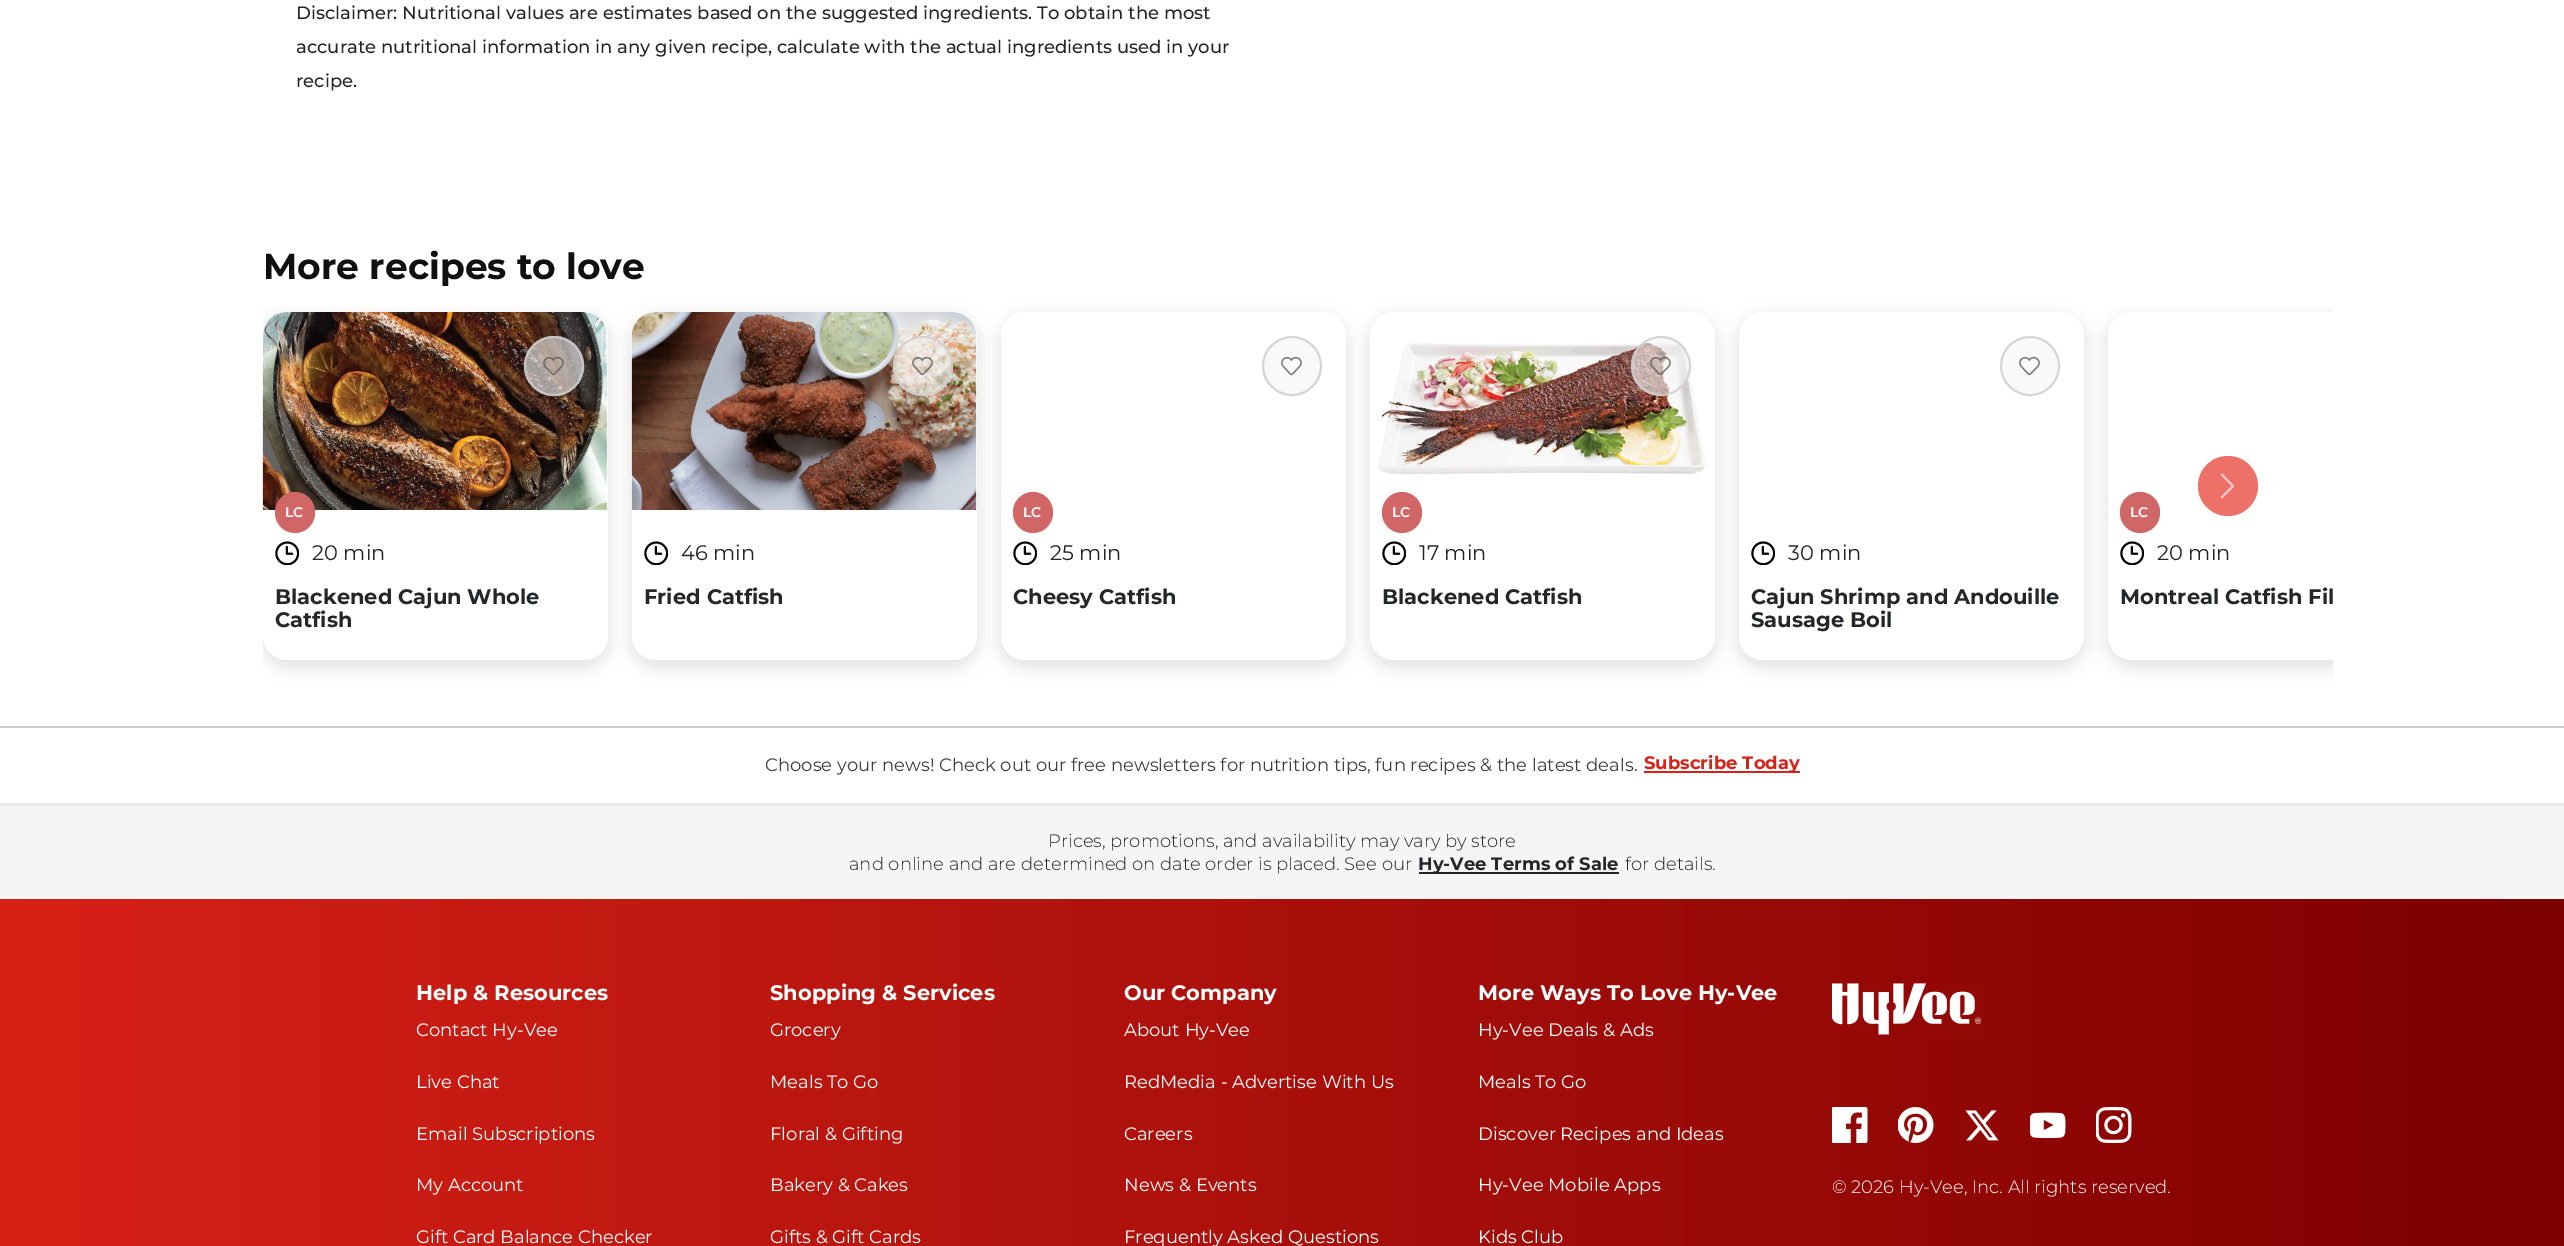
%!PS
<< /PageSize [2564 1246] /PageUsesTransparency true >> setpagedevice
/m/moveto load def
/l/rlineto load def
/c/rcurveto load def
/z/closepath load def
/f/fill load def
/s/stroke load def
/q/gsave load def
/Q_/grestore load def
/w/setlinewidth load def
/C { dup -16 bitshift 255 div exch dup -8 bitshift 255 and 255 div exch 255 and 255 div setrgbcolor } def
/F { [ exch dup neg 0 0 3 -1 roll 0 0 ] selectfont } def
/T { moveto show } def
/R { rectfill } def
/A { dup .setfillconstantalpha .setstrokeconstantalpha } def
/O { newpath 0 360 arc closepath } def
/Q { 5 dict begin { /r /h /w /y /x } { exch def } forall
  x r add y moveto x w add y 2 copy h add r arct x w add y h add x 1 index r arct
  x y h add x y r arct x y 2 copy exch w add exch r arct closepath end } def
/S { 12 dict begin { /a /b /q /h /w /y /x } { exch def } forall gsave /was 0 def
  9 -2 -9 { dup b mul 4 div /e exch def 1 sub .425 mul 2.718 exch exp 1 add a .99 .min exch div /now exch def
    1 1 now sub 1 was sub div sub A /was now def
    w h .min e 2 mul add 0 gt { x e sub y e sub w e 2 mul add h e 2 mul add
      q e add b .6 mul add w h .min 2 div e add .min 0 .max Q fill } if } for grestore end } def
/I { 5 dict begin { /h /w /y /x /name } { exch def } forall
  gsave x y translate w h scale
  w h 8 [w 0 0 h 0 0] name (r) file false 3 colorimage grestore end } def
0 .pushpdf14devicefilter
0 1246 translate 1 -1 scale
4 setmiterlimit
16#FFFFFF C
0 0 2564 1246 R
/Montserrat-Medium 18 F
16#242729 C
(Disclaimer: Nutritional values are estimates based on the suggested ingredients. To obtain the most) 296 19 T
(accurate nutritional information in any given recipe, calculate with the actual ingredients used in your) 296 53 T
(recipe.) 296 87 T
/Montserrat-Bold 36 F
16#101010 C
(More recipes to love) 263 279 T
q
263 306 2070 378 rectclip
16#000000 C
260 315 351 354 27 7.5 .1 S
Q_
16#FFFFFF C
263 312 345 348 24 Q f
(2.rgb) 262 312 346 198 I
16#000000 C
629 315 351 354 27 7.5 .1 S
16#FFFFFF C
632 312 345 348 24 Q f
(5.rgb) 631 312 346 198 I
16#000000 C
998 315 351 354 27 7.5 .1 S
16#FFFFFF C
1001 312 345 348 24 Q f
16#000000 C
1367 315 351 354 27 7.5 .1 S
16#FFFFFF C
1370 312 345 348 24 Q f
16#000000 C
1736 315 351 354 27 7.5 .1 S
16#FFFFFF C
1739 312 345 348 24 Q f
q
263 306 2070 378 rectclip
16#000000 C
2105 315 351 354 27 7.5 .1 S
Q_
2132 312 m 201 0 l 0 348 l -201 0 l -13.5 0 -24 -10.5 -24 -24 c 0 -300 l 0 -13.5 10.5 -24 24 -24 c z f
16#ED7069 C
2228 486 30 O f
(1.rgb) 2220 473 15 26 I
0.6 A
16#F5F5F5 C
554 366 30 O f
0.8 A
16#CCCCCC C
2 w
554 366 29 O s
1 A
(3.rgb) 543 356 21 20 I
16#D16666 C
275 492 40 41 20 Q f
/Montserrat-SemiBold 14 F
16#FFFFFF C
(LC) 285 517 T
(4.rgb) 275 541 24 24 I
/Montserrat-Regular 21 F
16#242729 C
(20 min) 312 560 T
/Montserrat-Bold 21 F
(Blackened Cajun Whole) 275 604 T
(Catfish) 275 627 T
0.6 A
16#F5F5F5 C
923 366 30 O f
0.8 A
16#CCCCCC C
923 366 29 O s
1 A
(6.rgb) 912 356 21 20 I
(4.rgb) 644 541 24 24 I
/Montserrat-Regular 21 F
16#242729 C
(46 min) 681 560 T
/Montserrat-Bold 21 F
(Fried Catfish) 644 604 T
16#F9F9F9 C
1292 366 29 O q f Q_
16#D6D6D6 C
s
(7.rgb) 1281 356 21 20 I
16#D16666 C
1013 492 40 41 20 Q f
/Montserrat-SemiBold 14 F
16#FFFFFF C
(LC) 1023 517 T
(4.rgb) 1013 541 24 24 I
/Montserrat-Regular 21 F
16#242729 C
(25 min) 1050 560 T
/Montserrat-Bold 21 F
(Cheesy Catfish) 1013 604 T
(9.rgb) 1379 341 326 133 I
0.6 A
16#F5F5F5 C
1661 366 30 O f
0.8 A
16#CCCCCC C
1661 366 29 O s
1 A
(8.rgb) 1650 356 21 20 I
16#D16666 C
1382 492 40 41 20 Q f
/Montserrat-SemiBold 14 F
16#FFFFFF C
(LC) 1392 517 T
(4.rgb) 1382 541 24 24 I
/Montserrat-Regular 21 F
16#242729 C
(17 min) 1419 560 T
/Montserrat-Bold 21 F
(Blackened Catfish) 1382 604 T
16#F9F9F9 C
2030 366 29 O q f Q_
16#D6D6D6 C
s
(7.rgb) 2019 356 21 20 I
(4.rgb) 1751 541 24 24 I
/Montserrat-Regular 21 F
16#242729 C
(30 min) 1788 560 T
/Montserrat-Bold 21 F
(Cajun Shrimp and Andouille) 1751 604 T
(Sausage Boil) 1751 627 T
16#D16666 C
2120 492 40 41 20 Q f
/Montserrat-SemiBold 14 F
16#FFFFFF C
(LC) 2130 517 T
(4.rgb) 2120 541 24 24 I
/Montserrat-Regular 21 F
16#242729 C
(20 min) 2157 560 T
/Montserrat-Bold 21 F
(Montreal Catfish Fil) 2120 604 T
q 0 899 m 2564 0 l 0 347 l -2564 0 l z clip newpath
<< /ShadingType 2 /ColorSpace /DeviceRGB /Coords [0 1107 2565 1107] /Extend [true true] /Function << /FunctionType 2 /Domain [0 1] /C0 [.847 .129 .09] /C1 [.486 0 0] /N 1 >> >> shfill Q_
16#CCCCCC C
0 726 2564 2 R
/Montserrat-Regular 18 F
16#3F3F3F C
(Choose your news! Check out our free newsletters for nutrition tips, fun recipes & the latest deals.) 765 771 T
16#D82117 C
1644 771 156 2 R
/Montserrat-Bold 18 F
(Subscribe Today) 1644 769 T
16#F5F5F5 C
0 806 2564 93 R
16#E8E8E8 C
0 803 2564 3 R
/Montserrat-Light 18 F
16#242729 C
(Prices, promotions, and availability may vary by store) 1048 847 T
(and online and are determined on date order is placed. See our) 849 870 T
1419 872 200 2 R
/Montserrat-Bold 18 F
(Hy-Vee Terms of Sale) 1418 870 T
/Montserrat-Light 18 F
(for details.) 1625 870 T
/Montserrat-Bold 21 F
16#FFFFFF C
(Help & Resources) 416 1000 T
/Montserrat-Regular 18 F
(Contact Hy-Vee) 416 1036 T
(Live Chat) 416 1088 T
(Email Subscriptions) 416 1140 T
(My Account) 416 1191 T
(Gift Card Balance Checker) 416 1243 T
/Montserrat-Bold 21 F
(Shopping & Services) 770 1000 T
/Montserrat-Regular 18 F
(Grocery) 770 1036 T
(Meals To Go) 770 1088 T
(Floral & Gifting) 770 1140 T
(Bakery & Cakes) 770 1191 T
(Gifts & Gift Cards) 770 1243 T
/Montserrat-Bold 21 F
(Our Company) 1124 1000 T
/Montserrat-Regular 18 F
(About Hy-Vee) 1124 1036 T
(RedMedia - Advertise With Us) 1124 1088 T
(Careers) 1124 1140 T
(News & Events) 1124 1191 T
(Frequently Asked Questions) 1124 1243 T
/Montserrat-Bold 21 F
(More Ways To Love Hy-Vee) 1478 1000 T
/Montserrat-Regular 18 F
(Hy-Vee Deals & Ads) 1478 1036 T
(Meals To Go) 1478 1088 T
(Discover Recipes and Ideas) 1478 1140 T
(Hy-Vee Mobile Apps) 1478 1191 T
(Kids Club) 1478 1243 T
(10.rgb) 1832 983 150 52 I
(11.rgb) 1832 1107 36 36 I
(12.rgb) 1898 1107 36 36 I
(13.rgb) 1965 1110 34 31 I
(14.rgb) 2030 1112 36 27 I
(15.rgb) 2096 1107 36 36 I
/Montserrat-Light 18 F
(© 2026 Hy-Vee, Inc. All rights reserved.) 1832 1193 T
.poppdf14devicefilter showpage
